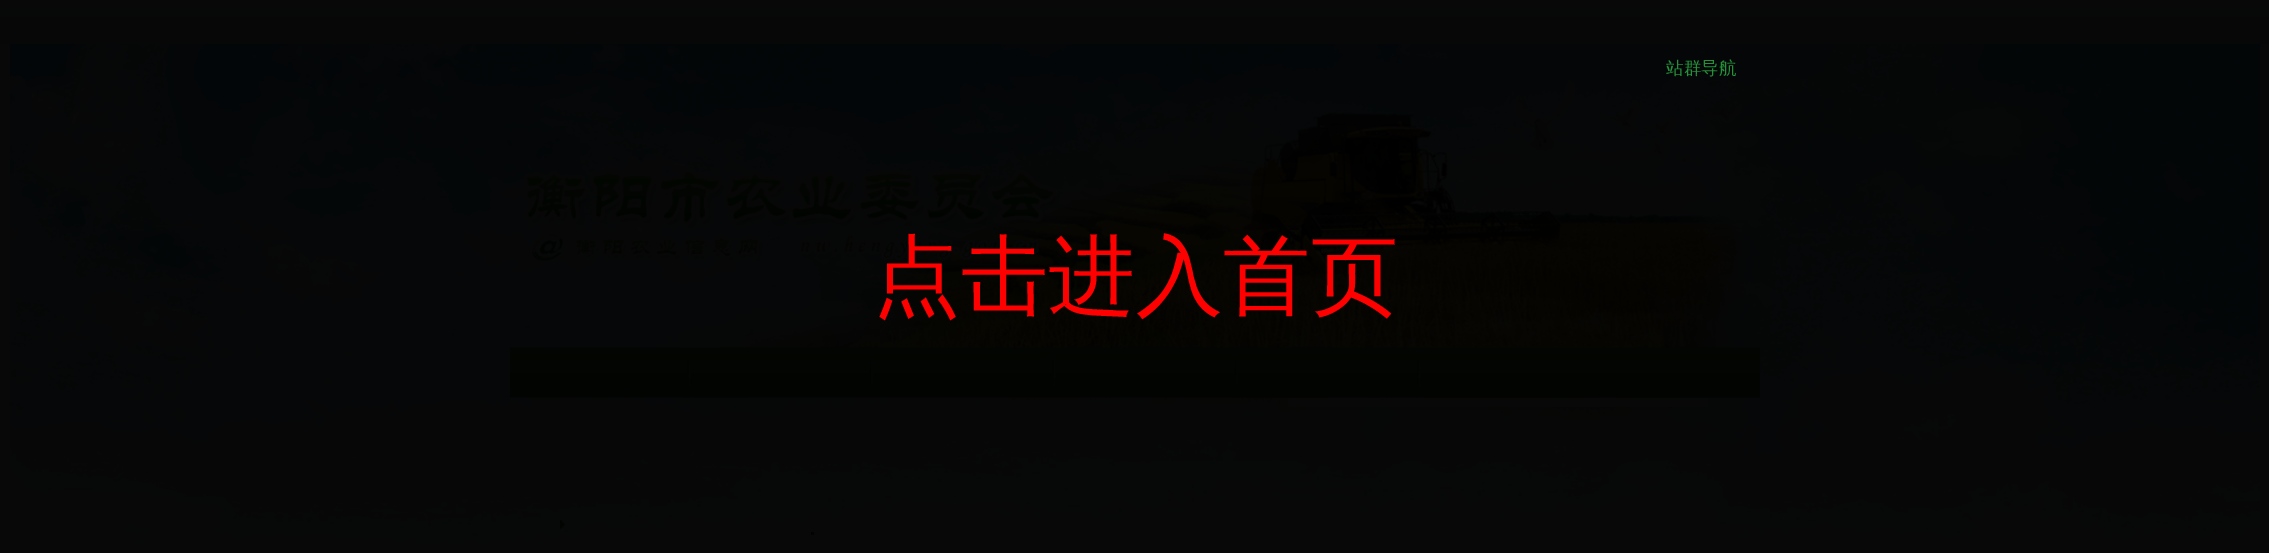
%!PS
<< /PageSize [2269 553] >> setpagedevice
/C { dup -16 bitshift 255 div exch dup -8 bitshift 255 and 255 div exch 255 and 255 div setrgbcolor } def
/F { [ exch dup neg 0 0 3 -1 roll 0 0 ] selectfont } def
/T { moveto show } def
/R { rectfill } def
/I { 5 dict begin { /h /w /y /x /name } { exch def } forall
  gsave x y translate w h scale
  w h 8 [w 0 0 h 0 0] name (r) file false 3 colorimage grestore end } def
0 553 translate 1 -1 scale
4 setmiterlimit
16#080808 C
0 0 2269 553 R
(3.rgb) 0 8 2269 36 I
(1.rgb) 10 43 2250 500 I
(2.rgb) 522 168 538 95 I
/WenQuanYiZenHei-Medium 17.5 F
16#25913A C
(站群导航) 1666 74 T
(4.rgb) 510 347 1250 51 I
(5.rgb) 687 352 4 41 I
(6.rgb) 869 352 4 40 I
(5.rgb) 1052 352 4 41 I
(6.rgb) 1234 352 4 40 I
(7.rgb) 1417 352 4 41 I
16#080808 C
1288 398 420 9 R
(8.rgb) 560 520 5 9 I
16#020202 C
811 532 3 3 R
/WenQuanYiZenHei-Medium 87.5 F
16#FF0000 C
(点击进入首页) 873 306 T
showpage
